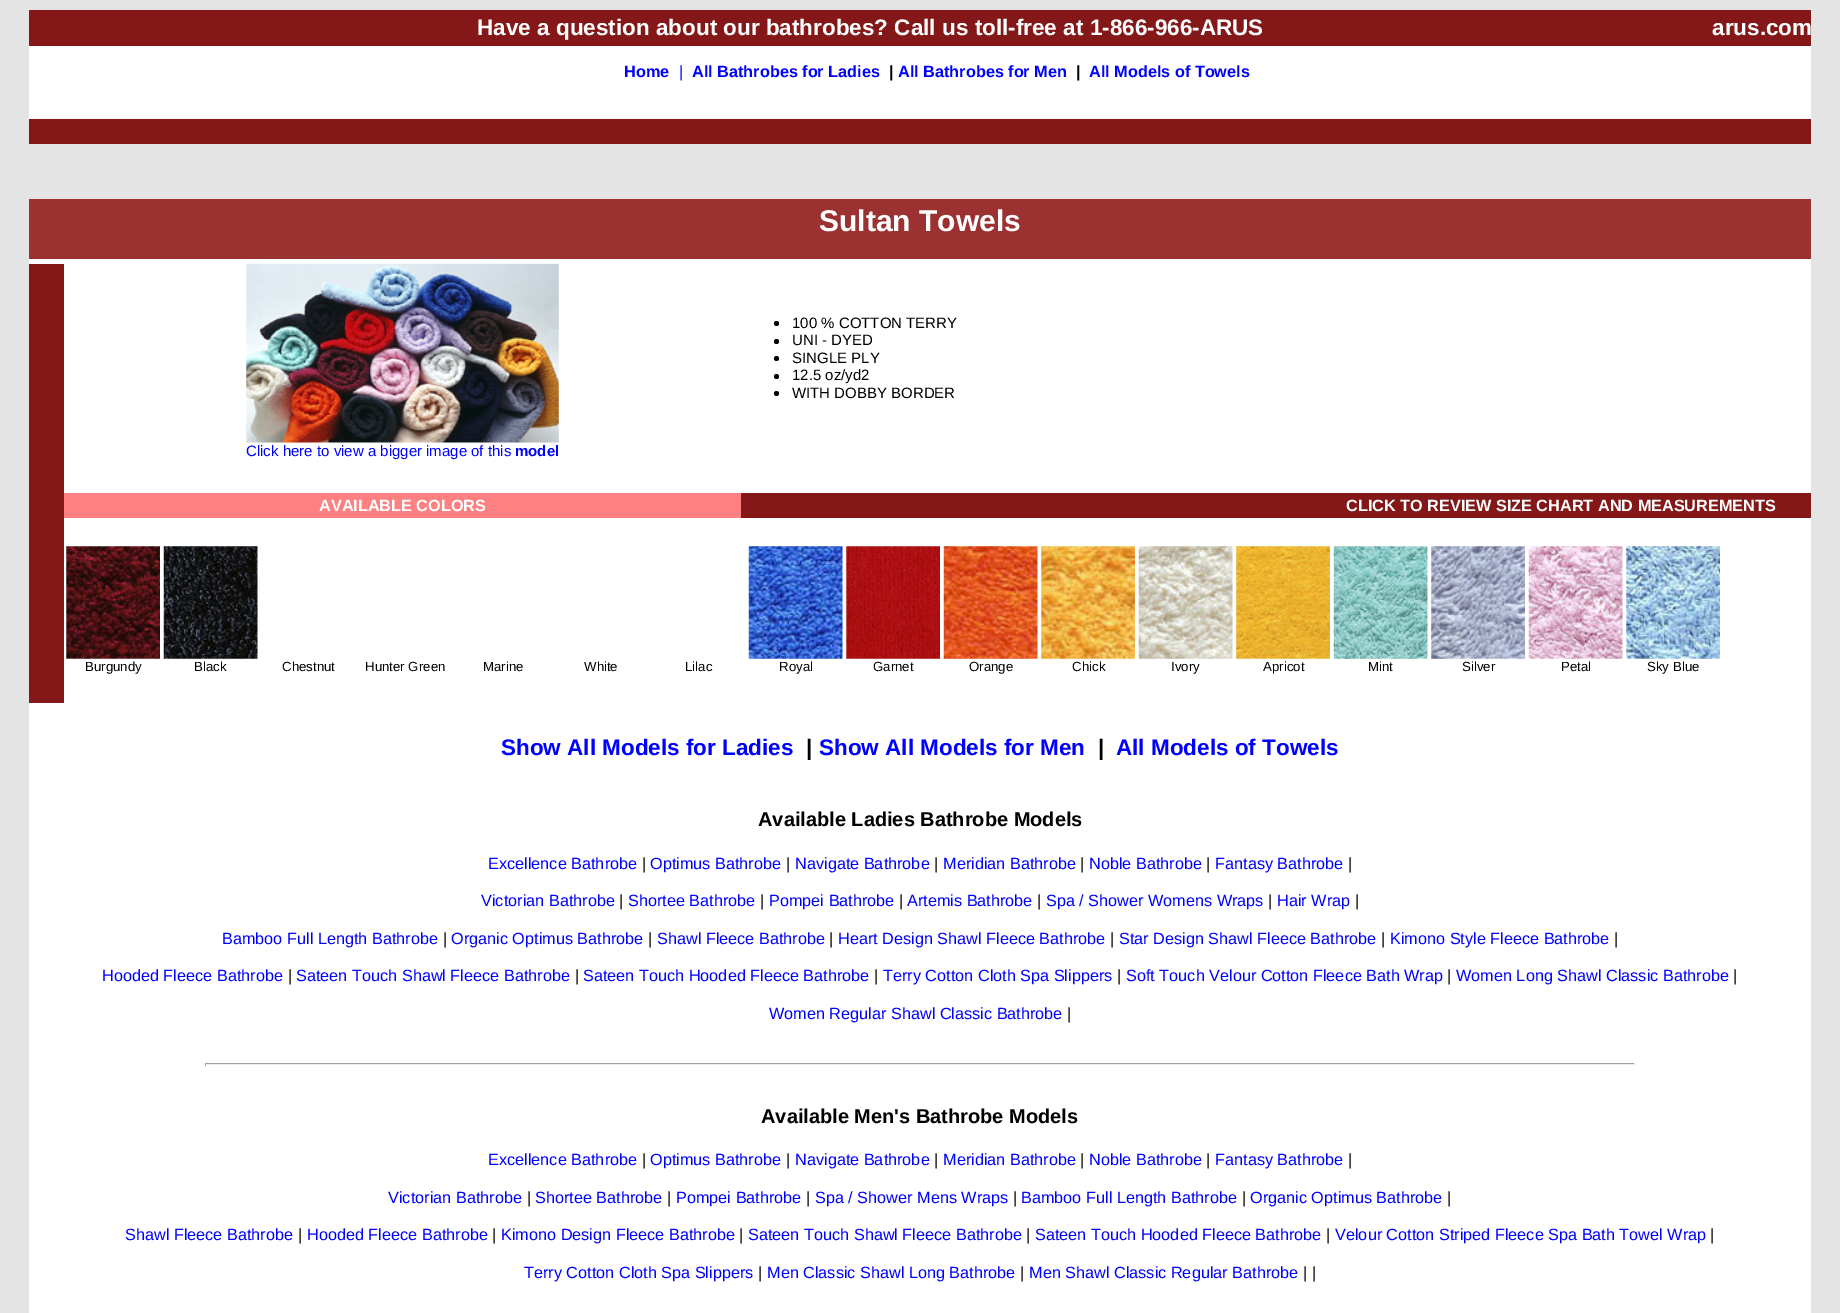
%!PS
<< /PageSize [1840 1313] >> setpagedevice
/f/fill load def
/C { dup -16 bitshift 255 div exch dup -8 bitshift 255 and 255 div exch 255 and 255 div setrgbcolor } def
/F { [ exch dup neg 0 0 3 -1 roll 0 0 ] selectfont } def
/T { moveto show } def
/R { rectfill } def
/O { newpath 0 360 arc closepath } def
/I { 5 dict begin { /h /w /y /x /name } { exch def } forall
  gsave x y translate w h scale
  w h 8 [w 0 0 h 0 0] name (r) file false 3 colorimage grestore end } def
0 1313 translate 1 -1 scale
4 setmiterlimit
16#E4E4E4 C
0 0 1840 1313 R
16#FFFFFF C
29 46 1782 73 R
16#841818 C
29 10 1782 5 R
29 15 1782 26 R
/LiberationSans-Bold 22.5 F
16#FFFFFF C
(Have a question about our bathrobes? Call us toll-free at 1-866-966-ARUS) 477 35 T
(arus.com) 1712 35 T
16#841818 C
29 41 1782 5 R
/LiberationSans-Bold 16.25 F
16#0000FF C
(Home) 624 77 T
/LiberationSans-Regular 16.25 F
(|) 679 77 T
/LiberationSans-Bold 16.25 F
(All Bathrobes for Ladies) 692 77 T
16#000000 C
(|) 889 77 T
16#0000FF C
(All Bathrobes for Men) 898 77 T
16#000000 C
(|) 1076 77 T
16#0000FF C
(All Models of Towels) 1089 77 T
16#841818 C
29 119 1782 25 R
16#9C3131 C
29 199 1782 60 R
/LiberationSans-Bold 30 F
16#FFFFFF C
(Sultan Towels) 819 231 T
29 259 1782 1054 R
16#841818 C
29 264 35 439 R
16#000000 C
776.5 323.5 2.5 O f
/LiberationSans-Regular 15 F
(100 % COTTON TERRY) 792 328 T
776.5 341.5 2.5 O f
(UNI - DYED) 792 345 T
776.5 358.5 2.5 O f
(SINGLE PLY) 792 363 T
776.5 376.5 2.5 O f
(12.5 oz/yd2) 792 380 T
776.5 393.5 2.5 O f
(WITH DOBBY BORDER) 792 398 T
(1.rgb) 246 263 313 180 I
16#0000FF C
(Click here to view a bigger image of this) 246 456 T
/LiberationSans-Bold 15 F
(model) 515 456 T
16#FF8080 C
64 493 677 25 R
/LiberationSans-Bold 16.25 F
16#FFFFFF C
(AVAILABLE COLORS) 319 511 T
16#841818 C
741 493 1070 25 R
16#FFFFFF C
(CLICK TO REVIEW SIZE CHART AND MEASUREMENTS) 1346 511 T
(2.rgb) 66 546 94 113 I
/LiberationSans-Regular 13.25 F
16#000000 C
(Burgundy) 85 671 T
(3.rgb) 163 546 95 113 I
(Black) 194 671 T
(Chestnut) 282 671 T
(Hunter Green) 365 671 T
(Marine) 483 671 T
(White) 584 671 T
(Lilac) 685 671 T
(4.rgb) 748 546 95 113 I
(Royal) 779 671 T
(5.rgb) 846 546 94 113 I
(Garnet) 873 671 T
(6.rgb) 943 546 95 113 I
(Orange) 969 671 T
(7.rgb) 1041 546 94 113 I
(Chick) 1072 671 T
(8.rgb) 1138 546 95 113 I
(Ivory) 1171 671 T
(9.rgb) 1236 546 94 113 I
(Apricot) 1263 671 T
(10.rgb) 1333 546 95 113 I
(Mint) 1368 671 T
(11.rgb) 1431 546 94 113 I
(Silver) 1462 671 T
(12.rgb) 1528 546 95 113 I
(Petal) 1561 671 T
(13.rgb) 1626 546 94 113 I
(Sky Blue) 1647 671 T
/LiberationSans-Bold 22.5 F
16#0000FF C
(Show All Models for Ladies) 501 755 T
16#000000 C
(|) 806 755 T
16#0000FF C
(Show All Models for Men) 819 755 T
16#000000 C
(|) 1098 755 T
16#0000FF C
(All Models of Towels) 1116 755 T
/LiberationSans-Bold 20 F
16#000000 C
(Available Ladies Bathrobe Models) 758 826 T
/LiberationSans-Regular 16.25 F
16#0000FF C
(Excellence Bathrobe) 488 869 T
16#000000 C
(|) 642 869 T
16#0000FF C
(Optimus Bathrobe) 650 869 T
16#000000 C
(|) 786 869 T
16#0000FF C
(Navigate Bathrobe) 795 869 T
16#000000 C
(|) 934 869 T
16#0000FF C
(Meridian Bathrobe) 943 869 T
16#000000 C
(|) 1080 869 T
16#0000FF C
(Noble Bathrobe) 1089 869 T
16#000000 C
(|) 1206 869 T
16#0000FF C
(Fantasy Bathrobe) 1215 869 T
16#000000 C
(|) 1348 869 T
16#0000FF C
(Victorian Bathrobe) 481 906 T
16#000000 C
(|) 619 906 T
16#0000FF C
(Shortee Bathrobe) 628 906 T
16#000000 C
(|) 760 906 T
16#0000FF C
(Pompei Bathrobe) 769 906 T
16#000000 C
(|) 899 906 T
16#0000FF C
(Artemis Bathrobe) 907 906 T
16#000000 C
(|) 1037 906 T
16#0000FF C
(Spa / Shower Womens Wraps) 1046 906 T
16#000000 C
(|) 1268 906 T
16#0000FF C
(Hair Wrap) 1277 906 T
16#000000 C
(|) 1355 906 T
16#0000FF C
(Bamboo Full Length Bathrobe) 222 944 T
16#000000 C
(|) 443 944 T
16#0000FF C
(Organic Optimus Bathrobe) 451 944 T
16#000000 C
(|) 648 944 T
16#0000FF C
(Shawl Fleece Bathrobe) 657 944 T
16#000000 C
(|) 829 944 T
16#0000FF C
(Heart Design Shawl Fleece Bathrobe) 838 944 T
16#000000 C
(|) 1110 944 T
16#0000FF C
(Star Design Shawl Fleece Bathrobe) 1119 944 T
16#000000 C
(|) 1381 944 T
16#0000FF C
(Kimono Style Fleece Bathrobe) 1390 944 T
16#000000 C
(|) 1614 944 T
16#0000FF C
(Hooded Fleece Bathrobe) 102 981 T
16#000000 C
(|) 288 981 T
16#0000FF C
(Sateen Touch Shawl Fleece Bathrobe) 296 981 T
16#000000 C
(|) 575 981 T
16#0000FF C
(Sateen Touch Hooded Fleece Bathrobe) 583 981 T
16#000000 C
(|) 874 981 T
16#0000FF C
(Terry Cotton Cloth Spa Slippers) 883 981 T
16#000000 C
(|) 1117 981 T
16#0000FF C
(Soft Touch Velour Cotton Fleece Bath Wrap) 1126 981 T
16#000000 C
(|) 1447 981 T
16#0000FF C
(Women Long Shawl Classic Bathrobe) 1456 981 T
16#000000 C
(|) 1733 981 T
16#0000FF C
(Women Regular Shawl Classic Bathrobe) 769 1019 T
16#000000 C
(|) 1067 1019 T
16#9F9F9F C
205 1063 1430 1 R
16#EEEEEE C
1634 1063 1 3 R
205 1064 1430 1 R
16#9F9F9F C
205 1063 1 3 R
/LiberationSans-Bold 20 F
16#000000 C
(Available Men's Bathrobe Models) 761 1123 T
/LiberationSans-Regular 16.25 F
16#0000FF C
(Excellence Bathrobe) 488 1165 T
16#000000 C
(|) 642 1165 T
16#0000FF C
(Optimus Bathrobe) 650 1165 T
16#000000 C
(|) 786 1165 T
16#0000FF C
(Navigate Bathrobe) 795 1165 T
16#000000 C
(|) 934 1165 T
16#0000FF C
(Meridian Bathrobe) 943 1165 T
16#000000 C
(|) 1080 1165 T
16#0000FF C
(Noble Bathrobe) 1089 1165 T
16#000000 C
(|) 1206 1165 T
16#0000FF C
(Fantasy Bathrobe) 1215 1165 T
16#000000 C
(|) 1348 1165 T
16#0000FF C
(Victorian Bathrobe) 388 1203 T
16#000000 C
(|) 527 1203 T
16#0000FF C
(Shortee Bathrobe) 535 1203 T
16#000000 C
(|) 667 1203 T
16#0000FF C
(Pompei Bathrobe) 676 1203 T
16#000000 C
(|) 806 1203 T
16#0000FF C
(Spa / Shower Mens Wraps) 815 1203 T
16#000000 C
(|) 1013 1203 T
16#0000FF C
(Bamboo Full Length Bathrobe) 1021 1203 T
16#000000 C
(|) 1242 1203 T
16#0000FF C
(Organic Optimus Bathrobe) 1250 1203 T
16#000000 C
(|) 1447 1203 T
16#0000FF C
(Shawl Fleece Bathrobe) 125 1240 T
16#000000 C
(|) 298 1240 T
16#0000FF C
(Hooded Fleece Bathrobe) 307 1240 T
16#000000 C
(|) 492 1240 T
16#0000FF C
(Kimono Design Fleece Bathrobe) 501 1240 T
16#000000 C
(|) 739 1240 T
16#0000FF C
(Sateen Touch Shawl Fleece Bathrobe) 748 1240 T
16#000000 C
(|) 1026 1240 T
16#0000FF C
(Sateen Touch Hooded Fleece Bathrobe) 1035 1240 T
16#000000 C
(|) 1326 1240 T
16#0000FF C
(Velour Cotton Striped Fleece Spa Bath Towel Wrap) 1335 1240 T
16#000000 C
(|) 1710 1240 T
16#0000FF C
(Terry Cotton Cloth Spa Slippers) 524 1278 T
16#000000 C
(|) 758 1278 T
16#0000FF C
(Men Classic Shawl Long Bathrobe) 767 1278 T
16#000000 C
(|) 1020 1278 T
16#0000FF C
(Men Shawl Classic Regular Bathrobe) 1029 1278 T
16#000000 C
(| |) 1303 1278 T
showpage
